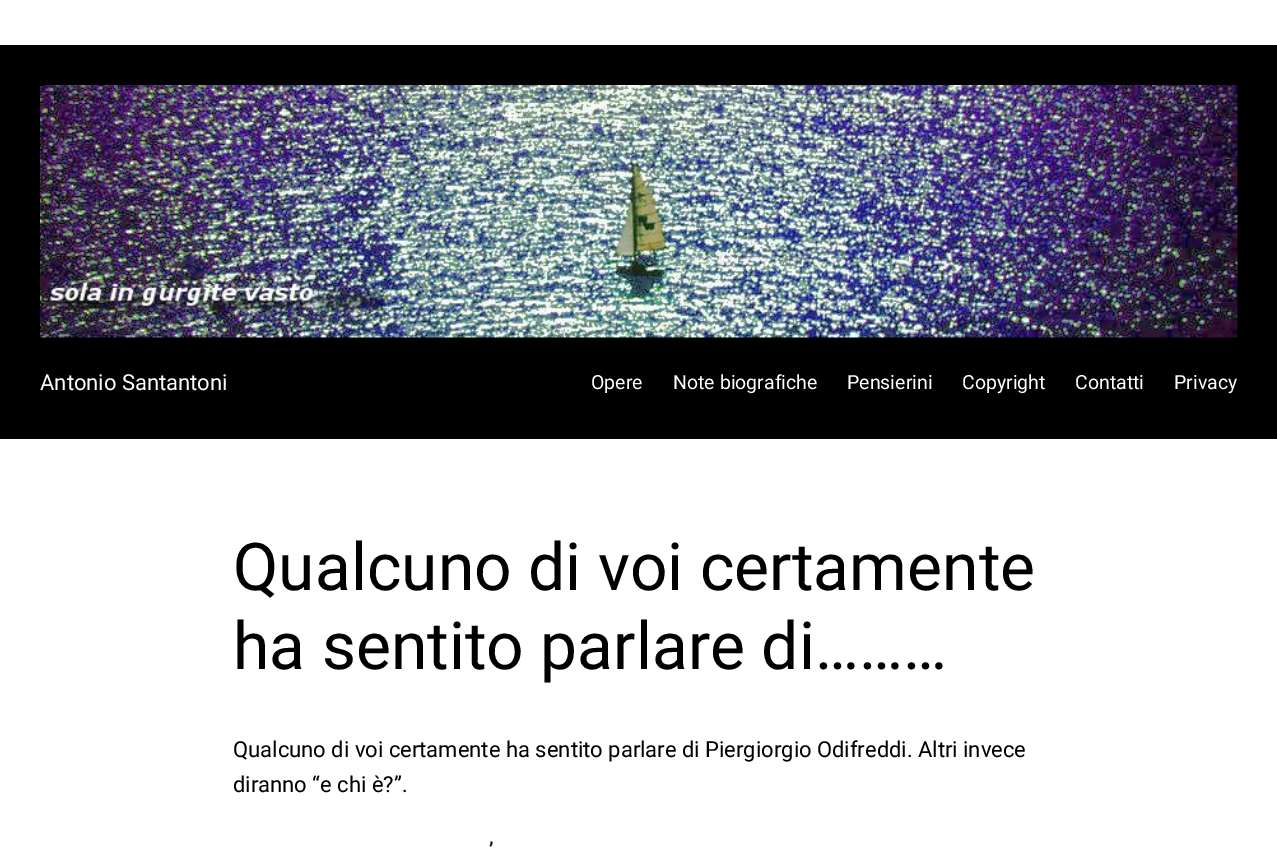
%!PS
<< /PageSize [1277 851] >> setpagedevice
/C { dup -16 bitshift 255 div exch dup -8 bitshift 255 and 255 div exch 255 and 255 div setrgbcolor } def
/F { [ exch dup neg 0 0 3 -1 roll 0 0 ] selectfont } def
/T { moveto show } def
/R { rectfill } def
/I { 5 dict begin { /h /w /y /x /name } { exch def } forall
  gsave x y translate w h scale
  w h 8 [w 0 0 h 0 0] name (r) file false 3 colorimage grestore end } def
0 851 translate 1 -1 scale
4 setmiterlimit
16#FFFFFF C
0 0 1277 851 R
16#000000 C
0 45 1277 394 R
(1.rgb) 40 85 1198 253 I
/Roboto-Regular 22 F
16#FFFFFF C
(Antonio Santantoni) 40 390 T
/Roboto-Regular 19.5 F
(Opere) 591 389 T
(Note biografiche) 673 389 T
(Pensierini) 847 389 T
(Copyright) 962 389 T
(Contatti) 1075 389 T
(Privacy) 1174 389 T
/Roboto-Regular 66 F
16#000000 C
(Qualcuno di voi certamente) 233 590 T
(ha sentito parlare di………) 233 669 T
/Roboto-Regular 22 F
(Qualcuno di voi certamente ha sentito parlare di Piergiorgio Odifreddi. Altri invece) 233 757 T
(diranno “e chi è?”.) 233 792 T
(’) 489 858 T
showpage
